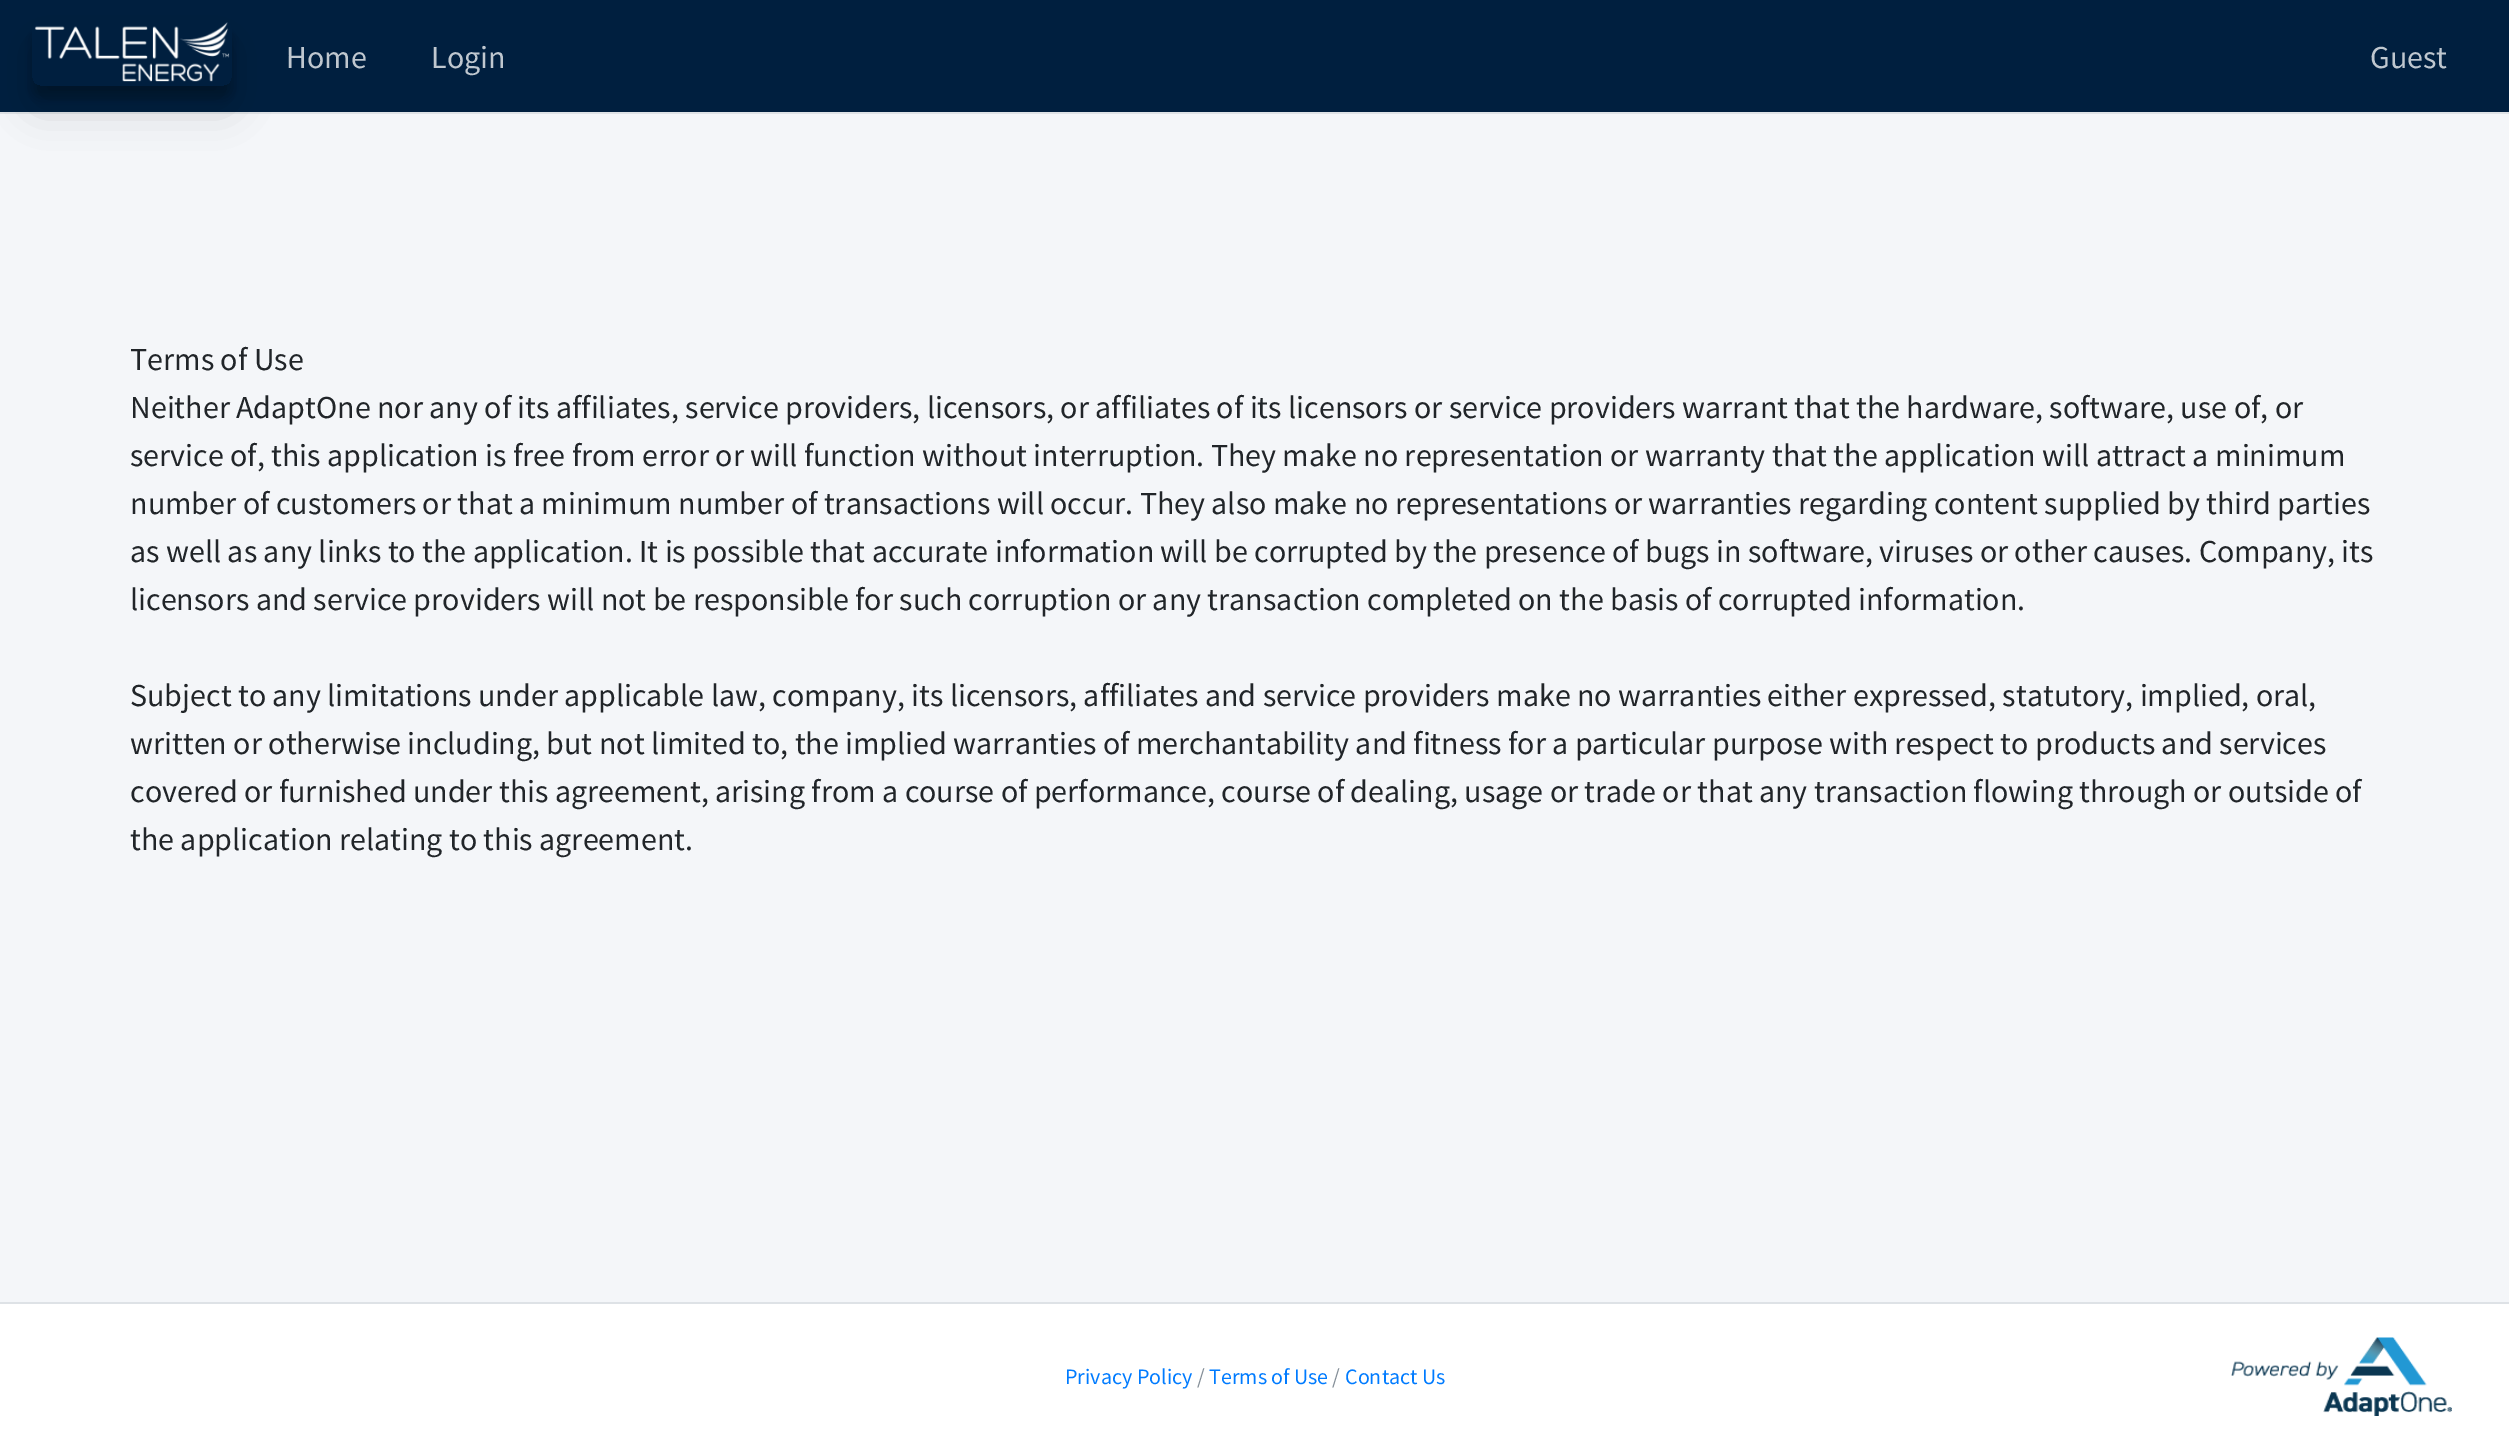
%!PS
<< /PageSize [2509 1447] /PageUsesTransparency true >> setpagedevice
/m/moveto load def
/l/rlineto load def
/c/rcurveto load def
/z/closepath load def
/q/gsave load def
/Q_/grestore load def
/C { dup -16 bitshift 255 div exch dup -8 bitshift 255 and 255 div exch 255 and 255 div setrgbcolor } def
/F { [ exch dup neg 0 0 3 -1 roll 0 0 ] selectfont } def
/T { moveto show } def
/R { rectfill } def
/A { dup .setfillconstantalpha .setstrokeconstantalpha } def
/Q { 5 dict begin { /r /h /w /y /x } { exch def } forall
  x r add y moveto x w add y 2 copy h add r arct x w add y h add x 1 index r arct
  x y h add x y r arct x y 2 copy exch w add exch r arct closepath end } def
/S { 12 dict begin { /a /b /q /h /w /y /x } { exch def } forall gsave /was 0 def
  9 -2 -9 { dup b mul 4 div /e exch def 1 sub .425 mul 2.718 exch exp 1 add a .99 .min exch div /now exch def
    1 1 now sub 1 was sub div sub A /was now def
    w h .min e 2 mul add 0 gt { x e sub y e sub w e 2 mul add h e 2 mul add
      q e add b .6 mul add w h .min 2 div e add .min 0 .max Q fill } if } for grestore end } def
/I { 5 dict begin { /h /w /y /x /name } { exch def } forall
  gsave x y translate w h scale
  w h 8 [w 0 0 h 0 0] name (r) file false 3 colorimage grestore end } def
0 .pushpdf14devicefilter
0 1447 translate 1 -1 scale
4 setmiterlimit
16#FFFFFF C
0 0 2509 1447 R
16#001F3F C
0 0 2509 112 R
16#DEE2E6 C
0 112 2509 2 R
16#F4F6F9 C
0 114 2509 1188 R
q
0 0 m 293 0 l 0 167 l -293 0 l z 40 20 m 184 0 l 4.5 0 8 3.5 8 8 c 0 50 l 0 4.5 -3.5 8 -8 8 c -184 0 l -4.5 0 -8 -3.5 -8 -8 c 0 -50 l 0 -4.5 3.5 -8 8 -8 c z eoclip newpath
16#000000 C
32 40 200 66 8 20 .19 S
Q_
q
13 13 m 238 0 l 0 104 l -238 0 l z 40 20 m 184 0 l 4.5 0 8 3.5 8 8 c 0 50 l 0 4.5 -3.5 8 -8 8 c -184 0 l -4.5 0 -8 -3.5 -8 -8 c 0 -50 l 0 -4.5 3.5 -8 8 -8 c z eoclip newpath
16#000000 C
32 32 200 66 8 6 .23 S
Q_
(1.rgb) 34 22 196 60 I
/SourceSansPro-Regular 32 F
16#BFC7CF C
(Home) 286 68 T
(Login) 431 68 T
(Guest) 2370 68 T
16#212529 C
(Terms of Use) 130 370 T
(Neither AdaptOne nor any of its affiliates, service providers, licensors, or affiliates of its licensors or service providers warrant that the hardware, software, use of, or) 130 418 T
(service of, this application is free from error or will function without interruption. They make no representation or warranty that the application will attract a minimum) 130 466 T
(number of customers or that a minimum number of transactions will occur. They also make no representations or warranties regarding content supplied by third parties) 130 514 T
(as well as any links to the application. It is possible that accurate information will be corrupted by the presence of bugs in software, viruses or other causes. Company, its) 130 562 T
(licensors and service providers will not be responsible for such corruption or any transaction completed on the basis of corrupted information.) 130 610 T
(Subject to any limitations under applicable law, company, its licensors, affiliates and service providers make no warranties either expressed, statutory, implied, oral,) 130 706 T
(written or otherwise including, but not limited to, the implied warranties of merchantability and fitness for a particular purpose with respect to products and services) 130 754 T
(covered or furnished under this agreement, arising from a course of performance, course of dealing, usage or trade or that any transaction flowing through or outside of) 130 802 T
(the application relating to this agreement.) 130 850 T
16#DEE2E6 C
0 1302 2509 2 R
/SourceSansPro-Regular 22 F
16#007BFF C
(Privacy Policy) 1065 1384 T
16#869099 C
(/) 1197 1384 T
16#007BFF C
(Terms of Use) 1209 1384 T
16#869099 C
(/) 1332 1384 T
16#007BFF C
(Contact Us) 1345 1384 T
(2.rgb) 2231 1337 221 79 I
.poppdf14devicefilter showpage
